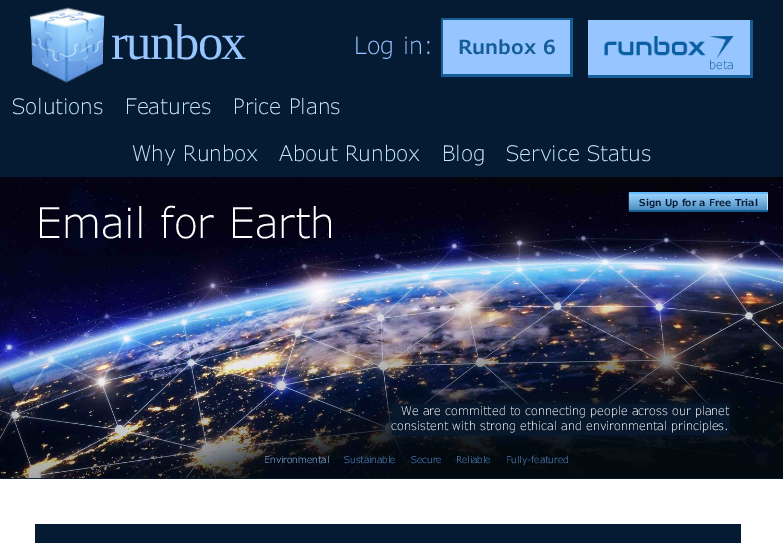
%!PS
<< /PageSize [783 543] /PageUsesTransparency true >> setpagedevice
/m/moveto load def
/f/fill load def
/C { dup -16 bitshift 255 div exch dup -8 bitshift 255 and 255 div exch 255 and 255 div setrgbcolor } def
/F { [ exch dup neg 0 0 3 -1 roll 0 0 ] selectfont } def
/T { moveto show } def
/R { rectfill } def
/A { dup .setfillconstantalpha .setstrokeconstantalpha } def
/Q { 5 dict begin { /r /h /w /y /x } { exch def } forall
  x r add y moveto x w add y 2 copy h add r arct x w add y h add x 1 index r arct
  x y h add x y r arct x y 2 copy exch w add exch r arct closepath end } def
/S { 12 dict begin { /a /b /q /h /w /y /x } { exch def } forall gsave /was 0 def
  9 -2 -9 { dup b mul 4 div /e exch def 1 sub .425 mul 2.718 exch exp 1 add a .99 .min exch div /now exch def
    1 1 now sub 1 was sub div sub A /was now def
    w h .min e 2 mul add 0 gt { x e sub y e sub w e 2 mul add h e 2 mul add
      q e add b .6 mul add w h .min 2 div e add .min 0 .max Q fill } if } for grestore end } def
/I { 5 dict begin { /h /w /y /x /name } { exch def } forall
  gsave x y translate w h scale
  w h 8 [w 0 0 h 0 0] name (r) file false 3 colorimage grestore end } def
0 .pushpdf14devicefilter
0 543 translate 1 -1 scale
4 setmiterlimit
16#FFFFFF C
0 0 783 543 R
16#051A33 C
0 0 783 177 R
(1.rgb) 30 7 75 76 I
/LiberationSerif-Regular 50.5 F
16#97C5FF C
111 59 m -1.5 0 (runbox) ashow
/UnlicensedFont-Light 24 F
(Log in:) 354 54 T
443 20 127 54 R
16#155D97 C
441 18 132 2 R
570 18 3 59 R
441 74 132 3 R
441 18 2 59 R
/UnlicensedFont-SemiBold 19.5 F
(Runbox 6) 458 54 T
16#97C5FF C
588 20 162 55 R
16#155D97 C
750 20 3 58 R
588 75 165 3 R
(2.rgb) 604 36 130 23 I
/UnlicensedFont-Light 12 F
(beta) 709 69 T
/UnlicensedFont-Light 21.5 F
16#C7E5FF C
(Solutions) 12 114 T
(Features) 125 114 T
(Price Plans) 233 114 T
(Why Runbox) 132 161 T
(About Runbox) 279 161 T
(Blog) 442 161 T
(Service Status) 506 161 T
16#051A33 C
0 478 783 1 R
(3.rgb) 0 177 783 302 I
16#FFFFFF C
767 194 1 16 R
(4.rgb) 628 192 140 19 I
/UnlicensedFont-SemiBold 9.6 F
16#051A33 C
(Sign Up for a Free Trial) 639 206 T
16#66BBFF C
629 192 139 2 1 Q f
16#155D97 C
629 210 139 2 1 Q f
/UnlicensedFont-Light 42.25 F
16#FFFFFF C
(Email for Earth) 36 238 T
16#08182C C
392 404 337 31 0 6 1 S
392 404 337 31 R
/UnlicensedFont-Light 12.05 F
16#FFFFFF C
(We are committed to connecting people across our planet) 401 415 T
(consistent with strong ethical and environmental principles.) 391 430 T
/UnlicensedFont-Light 9.6 F
16#97C5FF C
(Environmental) 264 463 T
16#5E98E1 C
(Sustainable) 344 463 T
(Secure) 411 463 T
(Reliable) 456 463 T
(Fully-featured) 506 463 T
16#051A33 C
35 524 706 19 R
.poppdf14devicefilter showpage
